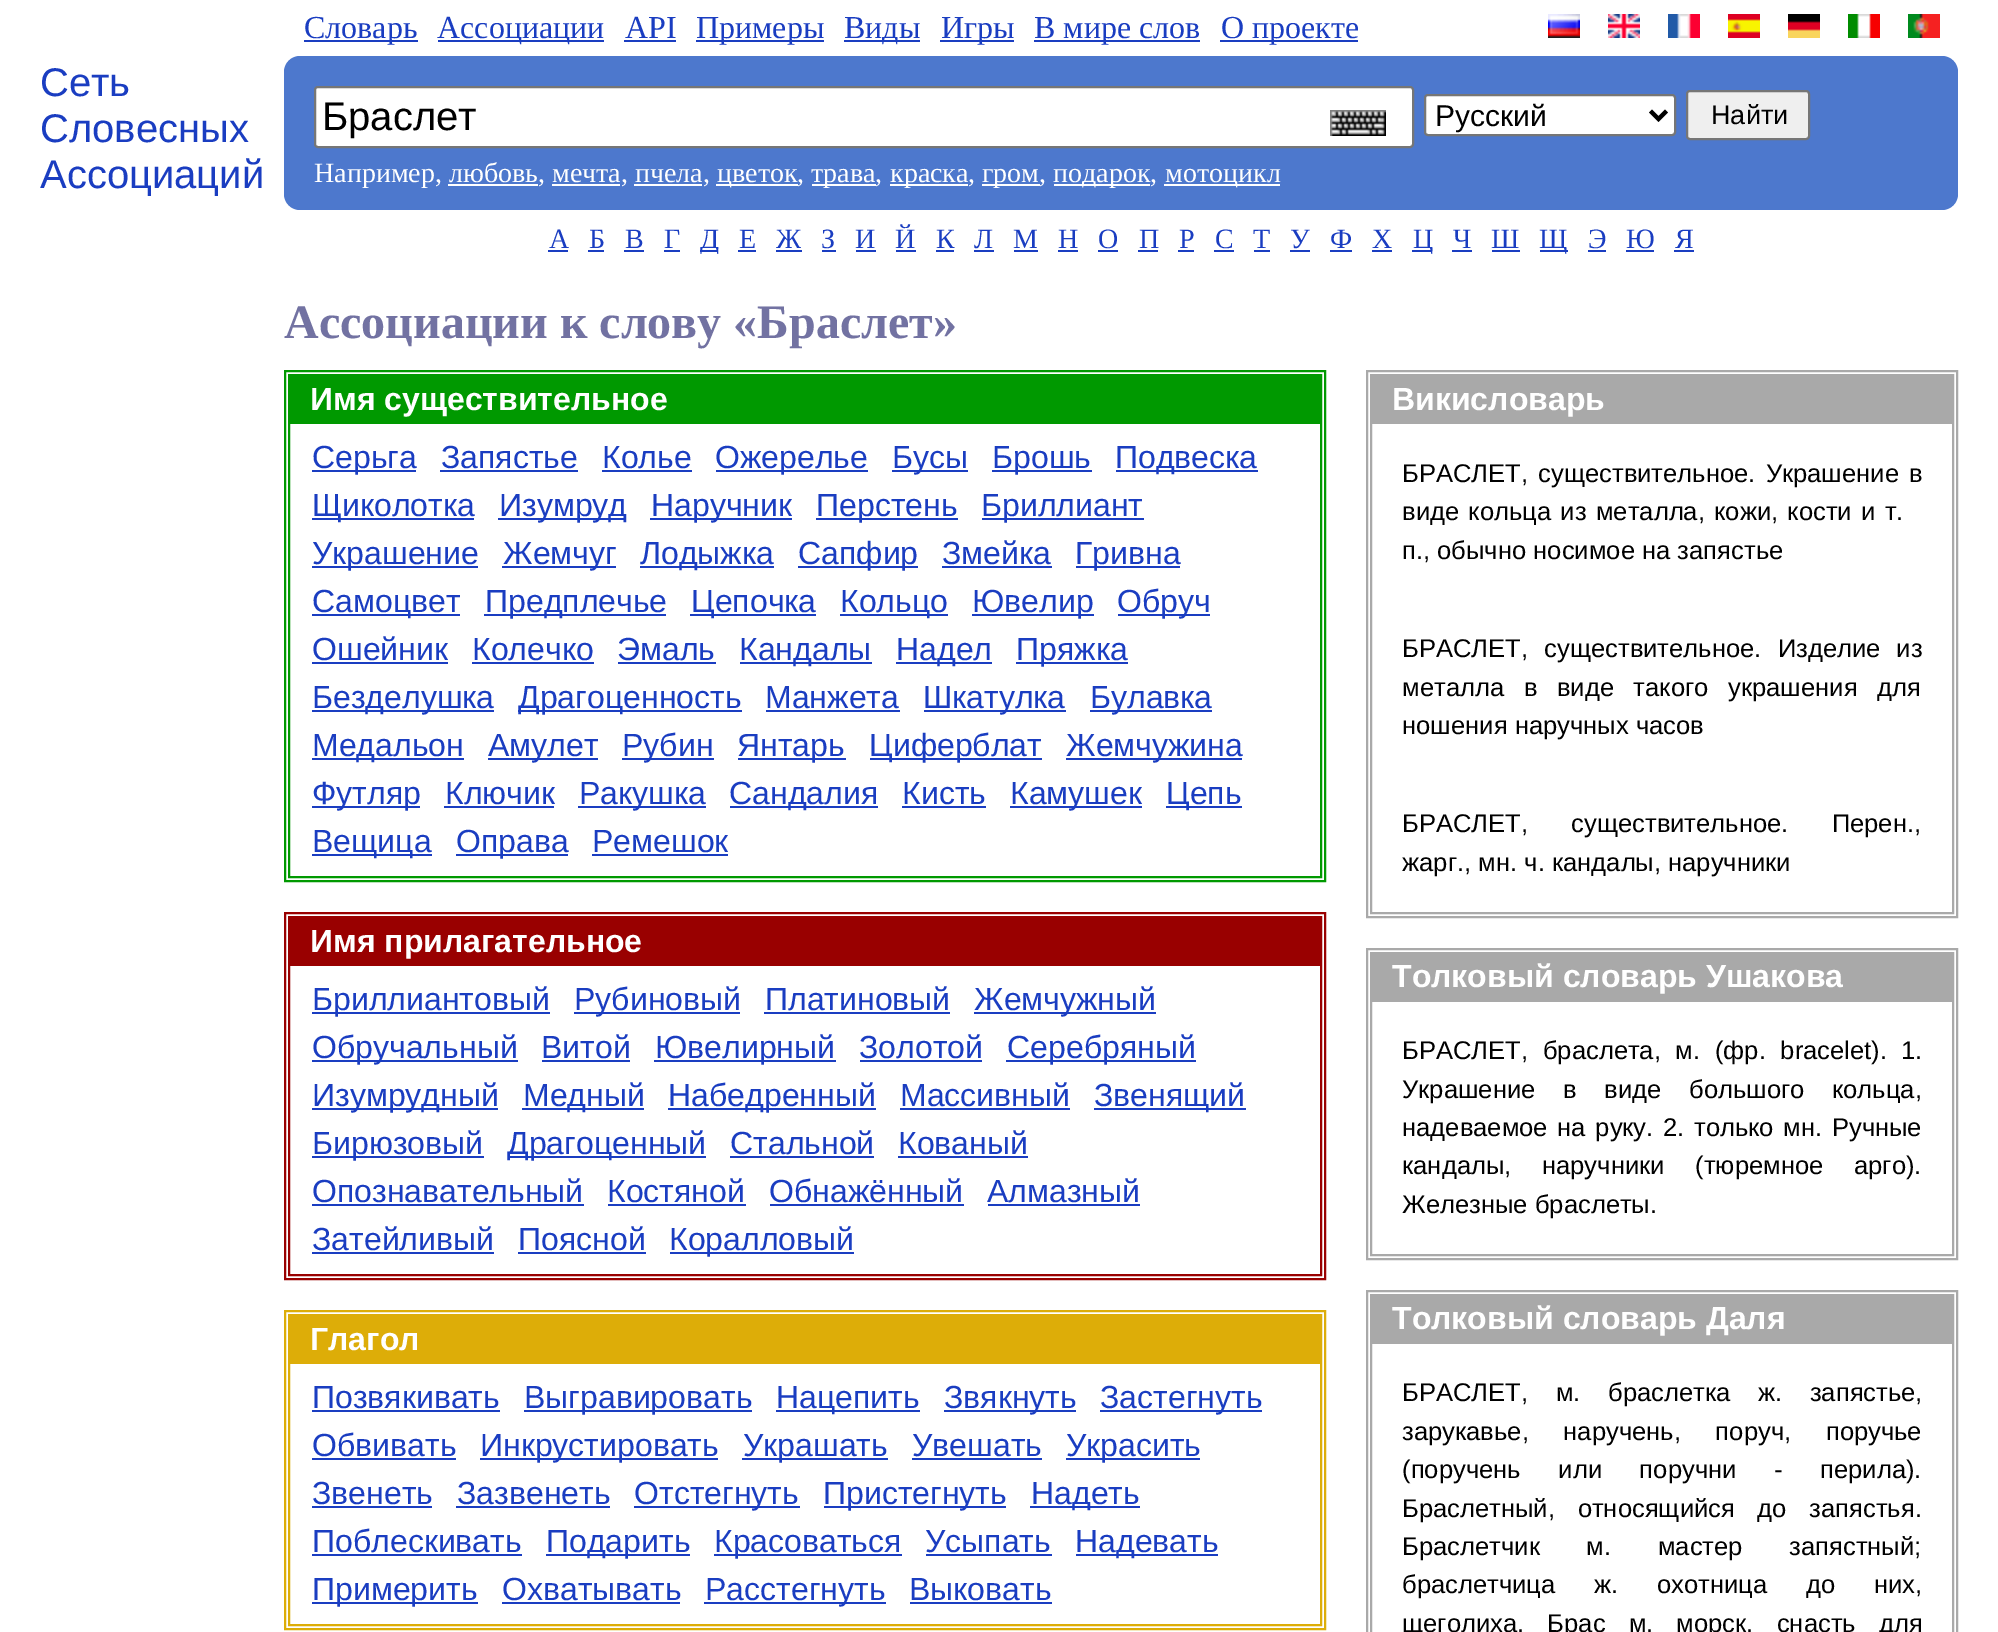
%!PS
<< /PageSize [1998 1632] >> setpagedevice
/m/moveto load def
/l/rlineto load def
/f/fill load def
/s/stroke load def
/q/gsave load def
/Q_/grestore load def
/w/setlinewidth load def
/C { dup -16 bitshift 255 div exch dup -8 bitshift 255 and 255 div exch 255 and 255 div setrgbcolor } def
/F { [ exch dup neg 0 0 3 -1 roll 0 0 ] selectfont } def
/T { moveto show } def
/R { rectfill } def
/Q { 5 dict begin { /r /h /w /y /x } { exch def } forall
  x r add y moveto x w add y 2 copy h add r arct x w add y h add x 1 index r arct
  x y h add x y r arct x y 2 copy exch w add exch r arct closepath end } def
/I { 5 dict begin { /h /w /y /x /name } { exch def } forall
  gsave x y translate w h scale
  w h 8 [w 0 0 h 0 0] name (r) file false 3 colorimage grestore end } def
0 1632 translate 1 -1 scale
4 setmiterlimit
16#FFFFFF C
0 0 1998 1632 R
/LiberationSans-Regular 40 F
16#1A3DC1 C
(Сеть) 40 96 T
(Словесных) 40 142 T
(Ассоциаций) 40 188 T
304 40 114 2 R
/LiberationSerif-Regular 32 F
(Словарь) 304 38 T
438 40 166 2 R
(Aссоциации) 437 38 T
(API) 625 38 T
624 40 52 2 R
696 40 128 2 R
(Примеры) 696 38 T
844 40 76 2 R
(Виды) 844 38 T
940 40 74 2 R
(Игры) 941 38 T
1034 40 166 2 R
(В мире слов) 1034 38 T
1220 40 138 2 R
(О проекте) 1221 38 T
(1.rgb) 1548 14 32 24 I
(2.rgb) 1608 14 32 24 I
(3.rgb) 1668 14 32 24 I
(4.rgb) 1728 14 32 24 I
(5.rgb) 1788 14 32 24 I
(6.rgb) 1848 14 32 24 I
(7.rgb) 1908 14 32 24 I
16#4D78CD C
284 56 1674 154 16 Q f
16#FFFFFF C
315 87 1098 60 3 Q q f Q_
16#767676 C
2 w
s
/LiberationSans-Regular 40 F
16#000000 C
(Браслет) 322 130 T
(8.rgb) 1330 110 56 26 I
16#FFFFFF C
1425 95 250 40 3 Q q f Q_
16#767676 C
s
16#000000 C
4 w
1650.5 111 m 8 8 l 8 -8 l s
/LiberationSans-Regular 30 F
(Русский) 1435 126 T
16#EFEFEF C
1687 91 122 48 3 Q q f Q_
16#767676 C
2 w
s
/LiberationSans-Regular 27 F
16#000000 C
(Найти) 1711 124 T
/LiberationSerif-Regular 28 F
16#FFFFFF C
(Например, любовь, мечта, пчела,) 314 182 T
716 184 82 2 R
(цветок,) 717 182 T
812 184 64 2 R
(трава,) 811 182 T
890 184 78 2 R
(краска,) 890 182 T
982 184 58 2 R
(гром,) 982 182 T
1054 184 96 2 R
(подарок,) 1053 182 T
1164 184 116 2 R
(мотоцикл) 1165 182 T
448 184 90 2 R
552 184 68 2 R
634 184 68 2 R
16#1A3DC1 C
(А) 549 248 T
548 250 20 2 R
(Б) 589 248 T
588 250 16 2 R
(В) 625 248 T
624 250 20 2 R
(Г) 664 248 T
664 250 16 2 R
700 250 18 2 R
(Д) 700 248 T
(Е) 739 248 T
738 250 18 2 R
(Ж) 776 248 T
776 250 26 2 R
(З) 821 248 T
822 250 14 2 R
(И) 855 248 T
856 250 20 2 R
(Й) 895 248 T
896 250 20 2 R
(К) 936 248 T
936 250 18 2 R
(Л) 974 248 T
974 250 20 2 R
(М) 1013 248 T
1014 250 24 2 R
(Н) 1058 248 T
1058 250 20 2 R
(О) 1098 248 T
1098 250 20 2 R
(П) 1139 248 T
1138 250 20 2 R
(Р) 1179 248 T
1178 250 16 2 R
(С) 1215 248 T
1214 250 20 2 R
(Т) 1253 248 T
1254 250 16 2 R
(У) 1290 248 T
1290 250 20 2 R
(Ф) 1330 248 T
1330 250 22 2 R
(Х) 1372 248 T
1372 250 20 2 R
1412 250 20 2 R
(Ц) 1413 248 T
(Ч) 1453 248 T
1452 250 20 2 R
(Ш) 1491 248 T
1492 250 28 2 R
1540 250 28 2 R
(Щ) 1539 248 T
(Э) 1588 248 T
1588 250 18 2 R
(Ю) 1626 248 T
1626 250 28 2 R
(Я) 1675 248 T
1674 250 20 2 R
/LiberationSerif-Bold 48 F
16#7272A2 C
(Ассоциации к слову «Браслет») 284 338 T
16#009900 C
285 371 1040 510 rectstroke
289 375 1032 502 rectstroke
290 376 1030 48 R
/LiberationSans-Bold 32 F
16#FFFFFF C
(Имя существительное) 310 410 T
16#1A3DC1 C
312 470 104 2 R
/LiberationSans-Regular 32 F
(Серьга) 312 468 T
(Запястье) 441 468 T
440 470 138 2 R
(Колье) 602 468 T
602 470 90 2 R
716 470 152 2 R
(Ожерелье) 715 468 T
892 470 76 2 R
(Бусы) 892 468 T
992 470 100 2 R
(Брошь) 992 468 T
1116 470 142 2 R
(Подвеска) 1115 468 T
312 518 162 2 R
(Щиколотка) 312 516 T
498 518 128 2 R
(Изумруд) 499 516 T
650 518 142 2 R
(Наручник) 651 516 T
816 518 142 2 R
(Перстень) 816 516 T
982 518 162 2 R
(Бриллиант) 981 516 T
312 566 166 2 R
(Украшение) 312 564 T
502 566 114 2 R
(Жемчуг) 503 564 T
640 566 134 2 R
(Лодыжка) 640 564 T
798 566 120 2 R
(Сапфир) 798 564 T
(Змейка) 942 564 T
942 566 110 2 R
1076 566 104 2 R
(Гривна) 1075 564 T
312 614 148 2 R
(Самоцвет) 312 612 T
484 614 182 2 R
(Предплечье) 485 612 T
690 614 126 2 R
(Цепочка) 691 612 T
840 614 108 2 R
(Кольцо) 840 612 T
972 614 122 2 R
(Ювелир) 972 612 T
1118 614 92 2 R
(Обруч) 1117 612 T
(Ошейник) 312 660 T
312 662 136 2 R
(Колечко) 472 660 T
472 662 122 2 R
(Эмаль) 617 660 T
618 662 98 2 R
740 662 132 2 R
(Кандалы) 739 660 T
896 662 96 2 R
(Надел) 896 660 T
1016 662 112 2 R
(Пряжка) 1016 660 T
312 710 182 2 R
(Безделушка) 312 708 T
518 710 224 2 R
(Драгоценность) 518 708 T
(Манжета) 765 708 T
766 710 134 2 R
924 710 142 2 R
(Шкатулка) 923 708 T
1090 710 122 2 R
(Булавка) 1090 708 T
312 758 152 2 R
(Медальон) 312 756 T
488 758 110 2 R
(Амулет) 488 756 T
622 758 92 2 R
(Рубин) 622 756 T
738 758 108 2 R
(Янтарь) 737 756 T
870 758 172 2 R
(Циферблат) 869 756 T
1066 758 176 2 R
(Жемчужина) 1066 756 T
312 806 108 2 R
(Футляр) 312 804 T
(Ключик) 445 804 T
444 806 110 2 R
578 806 128 2 R
(Ракушка) 579 804 T
730 806 148 2 R
(Сандалия) 729 804 T
(Кисть) 902 804 T
902 806 84 2 R
1010 806 132 2 R
(Камушек) 1010 804 T
1166 806 76 2 R
(Цепь) 1166 804 T
312 854 120 2 R
(Вещица) 312 852 T
456 854 112 2 R
(Оправа) 456 852 T
(Ремешок) 592 852 T
592 854 136 2 R
16#990000 C
285 913 1040 366 rectstroke
289 917 1032 358 rectstroke
290 918 1030 48 R
/LiberationSans-Bold 32 F
16#FFFFFF C
(Имя прилагательное) 310 952 T
16#1A3DC1 C
312 1012 238 2 R
/LiberationSans-Regular 32 F
(Бриллиантовый) 312 1010 T
574 1012 166 2 R
(Рубиновый) 574 1010 T
(Платиновый) 765 1010 T
764 1012 186 2 R
974 1012 182 2 R
(Жемчужный) 974 1010 T
312 1060 206 2 R
(Обручальный) 312 1058 T
(Витой) 541 1058 T
542 1060 88 2 R
654 1060 182 2 R
(Ювелирный) 655 1058 T
(Золотой) 859 1058 T
860 1060 122 2 R
1006 1060 190 2 R
(Серебряный) 1007 1058 T
312 1108 186 2 R
(Изумрудный) 312 1106 T
522 1108 122 2 R
(Медный) 523 1106 T
668 1108 208 2 R
(Набедренный) 668 1106 T
(Массивный) 900 1106 T
900 1108 170 2 R
1094 1108 152 2 R
(Звенящий) 1094 1106 T
312 1156 172 2 R
(Бирюзовый) 312 1154 T
508 1156 198 2 R
(Драгоценный) 507 1154 T
(Стальной) 730 1154 T
730 1156 144 2 R
(Кованый) 898 1154 T
898 1156 130 2 R
(Опознавательный) 312 1202 T
312 1204 272 2 R
(Костяной) 607 1202 T
608 1204 138 2 R
(Обнажённый) 769 1202 T
770 1204 194 2 R
(Алмазный) 987 1202 T
988 1204 152 2 R
(Затейливый) 312 1250 T
312 1252 182 2 R
(Поясной) 518 1250 T
518 1252 128 2 R
670 1252 184 2 R
(Коралловый) 669 1250 T
16#DDAD08 C
285 1311 1040 318 rectstroke
289 1315 1032 310 rectstroke
290 1316 1030 48 R
/LiberationSans-Bold 32 F
16#FFFFFF C
(Глагол) 310 1350 T
/LiberationSans-Regular 32 F
16#1A3DC1 C
(Позвякивать) 312 1408 T
312 1410 188 2 R
524 1410 228 2 R
(Выгравировать) 524 1408 T
776 1410 144 2 R
(Нацепить) 776 1408 T
944 1410 132 2 R
(Звякнуть) 944 1408 T
1100 1410 162 2 R
(Застегнуть) 1100 1408 T
(Обвивать) 312 1456 T
312 1458 144 2 R
480 1458 238 2 R
(Инкрустировать) 480 1456 T
742 1458 146 2 R
(Украшать) 743 1456 T
(Увешать) 912 1456 T
912 1458 130 2 R
1066 1458 134 2 R
(Украсить) 1066 1456 T
(Звенеть) 312 1504 T
312 1506 120 2 R
(Зазвенеть) 457 1504 T
456 1506 154 2 R
634 1506 166 2 R
(Отстегнуть) 634 1504 T
824 1506 182 2 R
(Пристегнуть) 823 1504 T
1030 1506 110 2 R
(Надеть) 1031 1504 T
(Поблескивать) 312 1552 T
312 1554 210 2 R
546 1554 144 2 R
(Подарить) 546 1552 T
714 1554 188 2 R
(Красоваться) 714 1552 T
(Усыпать) 925 1552 T
926 1554 126 2 R
1076 1554 142 2 R
(Надевать) 1075 1552 T
312 1602 166 2 R
(Примерить) 312 1600 T
(Охватывать) 502 1600 T
502 1602 178 2 R
704 1602 182 2 R
(Расстегнуть) 705 1600 T
(Выковать) 909 1600 T
910 1602 142 2 R
16#A9A9A9 C
1367 371 590 546 rectstroke
1371 375 582 538 rectstroke
1372 376 580 48 R
/LiberationSans-Bold 32 F
16#FFFFFF C
(Викисловарь) 1392 410 T
/LiberationSans-Regular 25.6 F
16#000000 C
1402 482 m 3 0 32 (БРАСЛЕТ, существительное. Украшение в) widthshow
1402 520 m 2.25 0 32 (виде кольца из металла, кожи, кости и т.) widthshow
(п., обычно носимое на запястье) 1402 559 T
1402 657 m 9 0 32 (БРАСЛЕТ, существительное. Изделие из) widthshow
1402 696 m 12.5 0 32 (металла в виде такого украшения для) widthshow
(ношения наручных часов) 1402 734 T
1402 832 m 36 0 32 (БРАСЛЕТ, существительное. Перен.,) widthshow
(жарг., мн. ч. кандалы, наручники) 1402 871 T
16#A9A9A9 C
1367 949 590 310 rectstroke
1371 953 582 302 rectstroke
1372 954 580 48 R
/LiberationSans-Bold 32 F
16#FFFFFF C
(Толковый словарь Ушакова) 1392 987 T
/LiberationSans-Regular 25.6 F
16#000000 C
1402 1059 m 7.5 0 32 (БРАСЛЕТ, браслета, м. \(фр. bracelet\).) widthshow
(1.) 1901 1059 T
1402 1098 m 20.5 0 32 (Украшение в виде большого кольца,) widthshow
1402 1136 m 2.5 0 32 (надеваемое на руку.) widthshow
1663 1136 m 2.5 0 32 (2. только мн. Ручные) widthshow
1402 1174 m 23.5 0 32 (кандалы, наручники \(тюремное арго\).) widthshow
(Железные браслеты.) 1402 1213 T
16#A9A9A9 C
1367 1291 590 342 rectstroke
1371 1295 582 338 rectstroke
1372 1296 580 48 R
/LiberationSans-Bold 32 F
16#FFFFFF C
(Толковый словарь Даля) 1392 1329 T
/LiberationSans-Regular 25.6 F
16#000000 C
1402 1401 m 20.5 0 32 (БРАСЛЕТ, м. браслетка ж. запястье,) widthshow
1402 1440 m 27.5 0 32 (зарукавье, наручень, поруч, поручье) widthshow
1402 1478 m 30.5 0 32 (\(поручень или поручни - перила\).) widthshow
1402 1517 m 15.5 0 32 (Браслетный, относящийся до запястья.) widthshow
1402 1555 m 39.5 0 32 (Браслетчик м. мастер запястный;) widthshow
1402 1593 m 31.5 0 32 (браслетчица ж. охотница до них,) widthshow
1402 1632 m 16 0 32 (щеголиха. Брас м. морск. снасть для) widthshow
showpage
